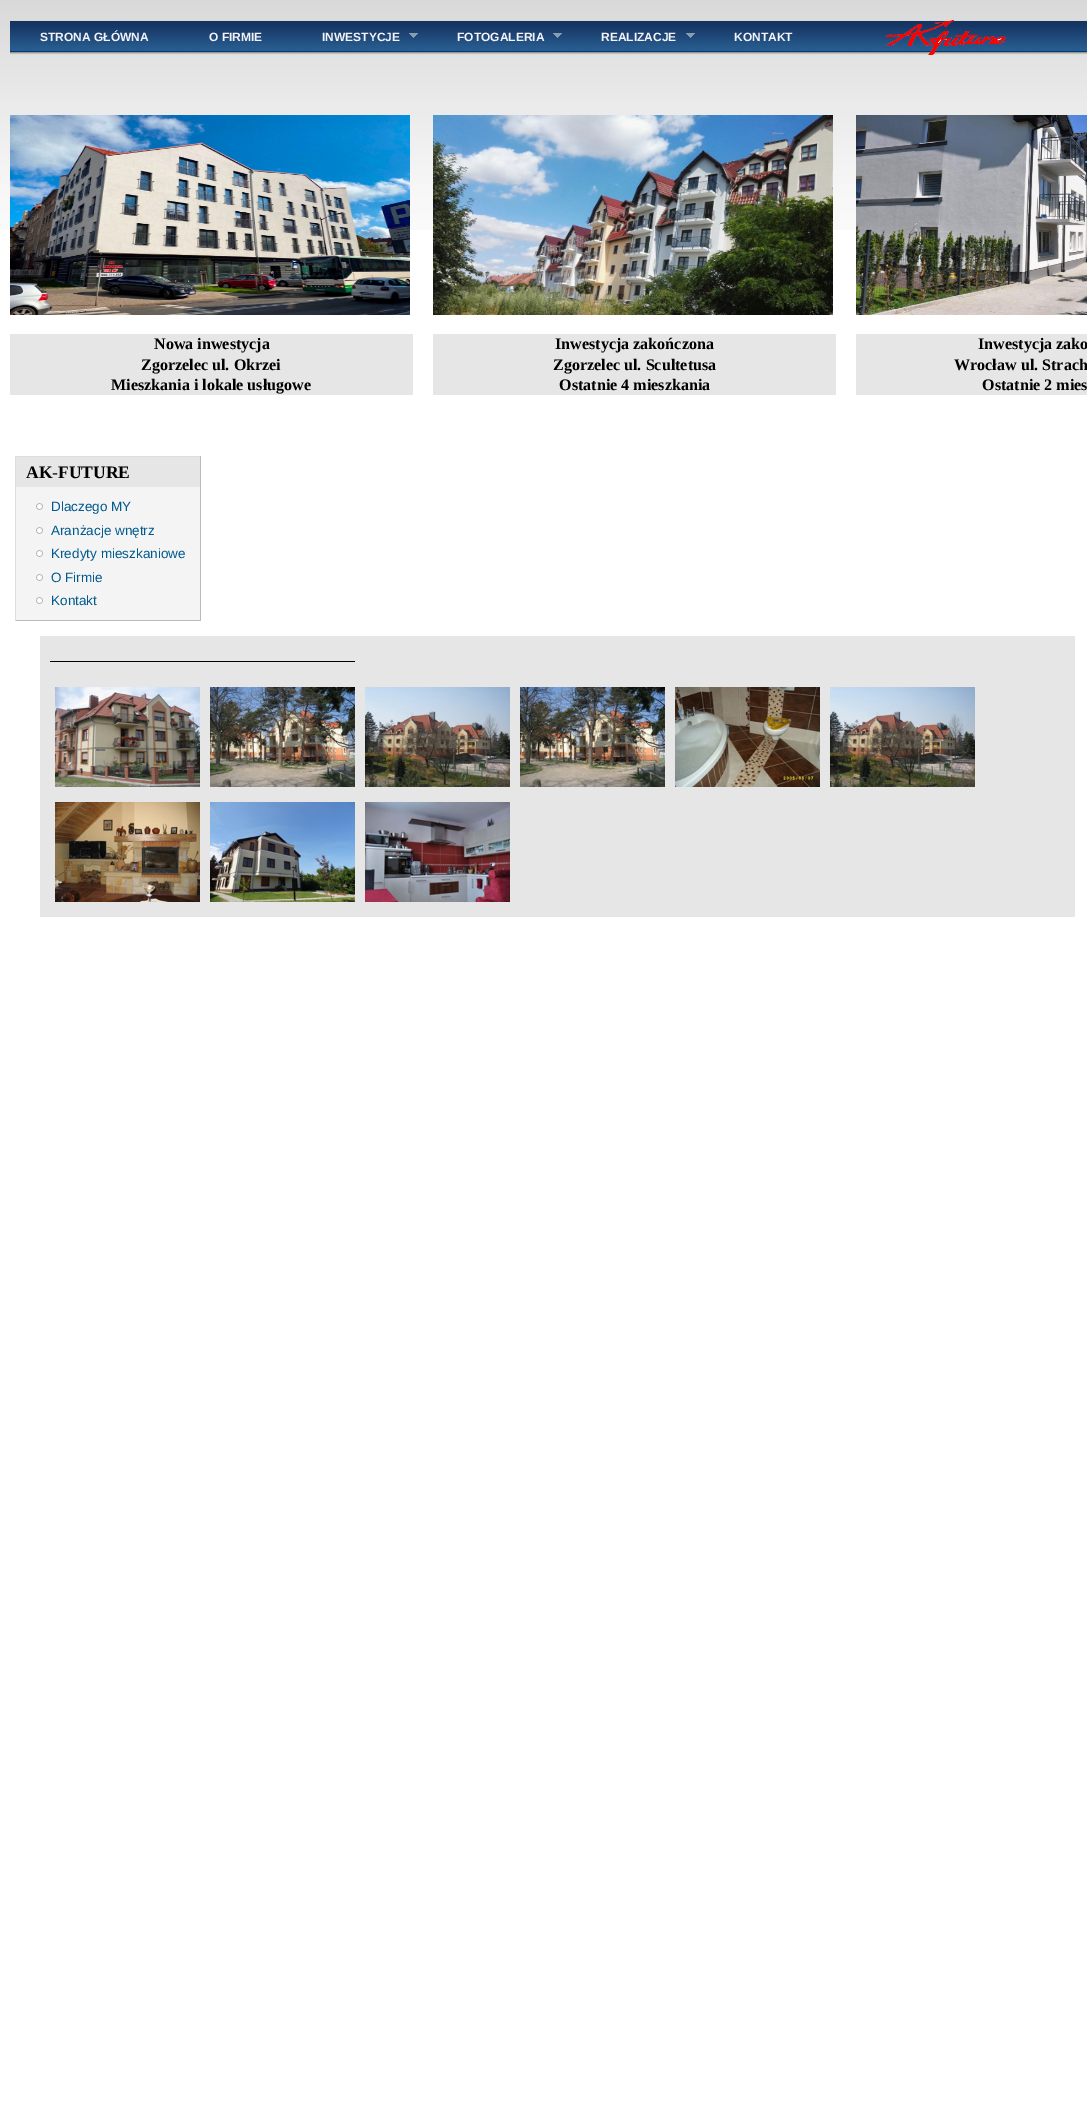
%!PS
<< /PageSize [1087 2128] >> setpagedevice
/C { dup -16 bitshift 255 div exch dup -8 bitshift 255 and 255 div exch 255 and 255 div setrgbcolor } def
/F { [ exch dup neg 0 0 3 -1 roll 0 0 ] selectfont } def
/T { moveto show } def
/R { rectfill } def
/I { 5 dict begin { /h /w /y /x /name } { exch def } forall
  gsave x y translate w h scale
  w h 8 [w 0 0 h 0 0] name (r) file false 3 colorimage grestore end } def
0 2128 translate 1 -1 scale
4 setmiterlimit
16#FFFFFF C
0 0 1087 2128 R
(1.rgb) 0 0 1087 230 I
(2.rgb) 10 20 1077 35 I
/LiberationSans-Bold 12 F
16#F5F3F9 C
(STRONA GŁÓWNA) 40 41 T
(O FIRMIE) 209 41 T
(INWESTYCJE) 322 41 T
(3.rgb) 409 33 9 5 I
(FOTOGALERIA) 457 41 T
(3.rgb) 553 33 9 5 I
(REALIZACJE) 601 41 T
(3.rgb) 686 33 9 5 I
(KONTAKT) 734 41 T
(4.rgb) 886 20 120 35 I
(5.rgb) 10 115 400 200 I
16#E6E6E6 C
10 334 403 61 R
/LiberationSerif-Bold 16.1 F
16#000000 C
(Nowa inwestycja) 154 349 T
(Zgorzelec ul. Okrzei) 141 370 T
(Mieszkania i lokale usługowe) 111 390 T
(6.rgb) 433 115 400 200 I
16#E6E6E6 C
433 334 403 61 R
16#000000 C
(Inwestycja zakończona) 555 349 T
(Zgorzelec ul. Scultetusa) 553 370 T
(Ostatnie 4 mieszkania) 559 390 T
(7.rgb) 856 115 231 200 I
16#E6E6E6 C
856 334 231 61 R
16#000000 C
(Inwestycja zako) 978 349 T
(Wrocław ul. Strach) 954 370 T
(Ostatnie 2 mies) 982 390 T
16#F4F4F4 C
16 487 184 133 R
16#DDDDDD C
15 456 186 1 R
16#BBBBBB C
200 456 1 165 R
15 620 186 1 R
16#DDDDDD C
15 456 1 165 R
16#E6E6E6 C
16 457 184 30 R
/LiberationSerif-Bold 17.5 F
16#000000 C
(AK-FUTURE) 26 478 T
(8.rgb) 36 503 7 7 I
/LiberationSans-Regular 13.5 F
16#005A8C C
(Dlaczego MY) 51 511 T
(8.rgb) 36 527 7 7 I
(Aranżacje wnętrz) 51 535 T
(8.rgb) 36 550 7 7 I
(Kredyty mieszkaniowe) 51 558 T
(8.rgb) 36 574 7 7 I
(O Firmie) 51 582 T
(8.rgb) 36 597 7 7 I
(Kontakt) 51 605 T
16#E6E6E6 C
40 636 1035 281 R
16#000000 C
50 661 305 1 R
(9.rgb) 55 687 145 100 I
(10.rgb) 210 687 145 100 I
(11.rgb) 365 687 145 100 I
(12.rgb) 520 687 145 100 I
(13.rgb) 675 687 145 100 I
(11.rgb) 830 687 145 100 I
(14.rgb) 55 802 145 100 I
(15.rgb) 210 802 145 100 I
(16.rgb) 365 802 145 100 I
showpage
